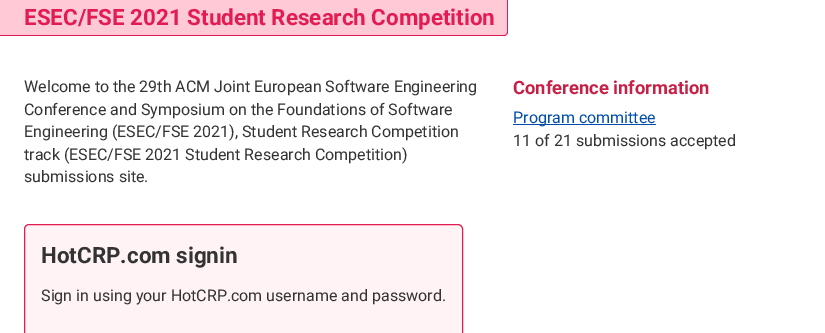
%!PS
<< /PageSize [825 333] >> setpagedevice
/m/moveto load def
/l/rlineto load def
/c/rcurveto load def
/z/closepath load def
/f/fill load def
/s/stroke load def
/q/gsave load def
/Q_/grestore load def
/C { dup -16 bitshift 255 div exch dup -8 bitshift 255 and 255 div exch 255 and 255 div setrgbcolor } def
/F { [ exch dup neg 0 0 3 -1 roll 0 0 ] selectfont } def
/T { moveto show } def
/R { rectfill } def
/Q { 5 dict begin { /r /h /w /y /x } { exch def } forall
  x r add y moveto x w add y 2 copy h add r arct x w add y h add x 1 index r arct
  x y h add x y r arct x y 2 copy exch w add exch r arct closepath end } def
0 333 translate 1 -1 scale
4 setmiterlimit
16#FFFFFF C
0 0 825 333 R
16#FFC9D6 C
0 0 m 508 0 l 0 32 l 0 2 -2 4 -4 4 c -504 0 l z f
16#E21C53 C
0 0 m 508 0 l 0 32 l 0 2 -2 4 -4 4 c -504 0 l z 0 0 m 507 0 l 0 32 l 0 2 -1 3 -3 3 c -504 0 l z eofill
/Roboto-Bold 22.4 F
(ESEC/FSE 2021 Student Research Competition) 24 25 T
/Roboto-Regular 16 F
16#333333 C
(Welcome to the 29th ACM Joint European Software Engineering) 24 92 T
(Conference and Symposium on the Foundations of Software) 24 115 T
(Engineering \(ESEC/FSE 2021\), Student Research Competition) 24 137 T
(track \(ESEC/FSE 2021 Student Research Competition\)) 24 160 T
(submissions site.) 24 182 T
16#FFF3F5 C
24.5 224.5 438 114 4.5 Q q f Q_
16#E21C53 C
s
/Roboto-Bold 22.4 F
16#333333 C
(HotCRP.com signin) 41 263 T
/Roboto-Regular 16 F
(Sign in using your HotCRP.com username and password.) 41 301 T
/Roboto-Bold 18.4 F
16#C72047 C
(Conference information) 513 94 T
16#004DAA C
513 124 143 1 R
/Roboto-Regular 16 F
(Program committee) 513 123 T
16#333333 C
(11 of 21 submissions accepted) 513 146 T
showpage
